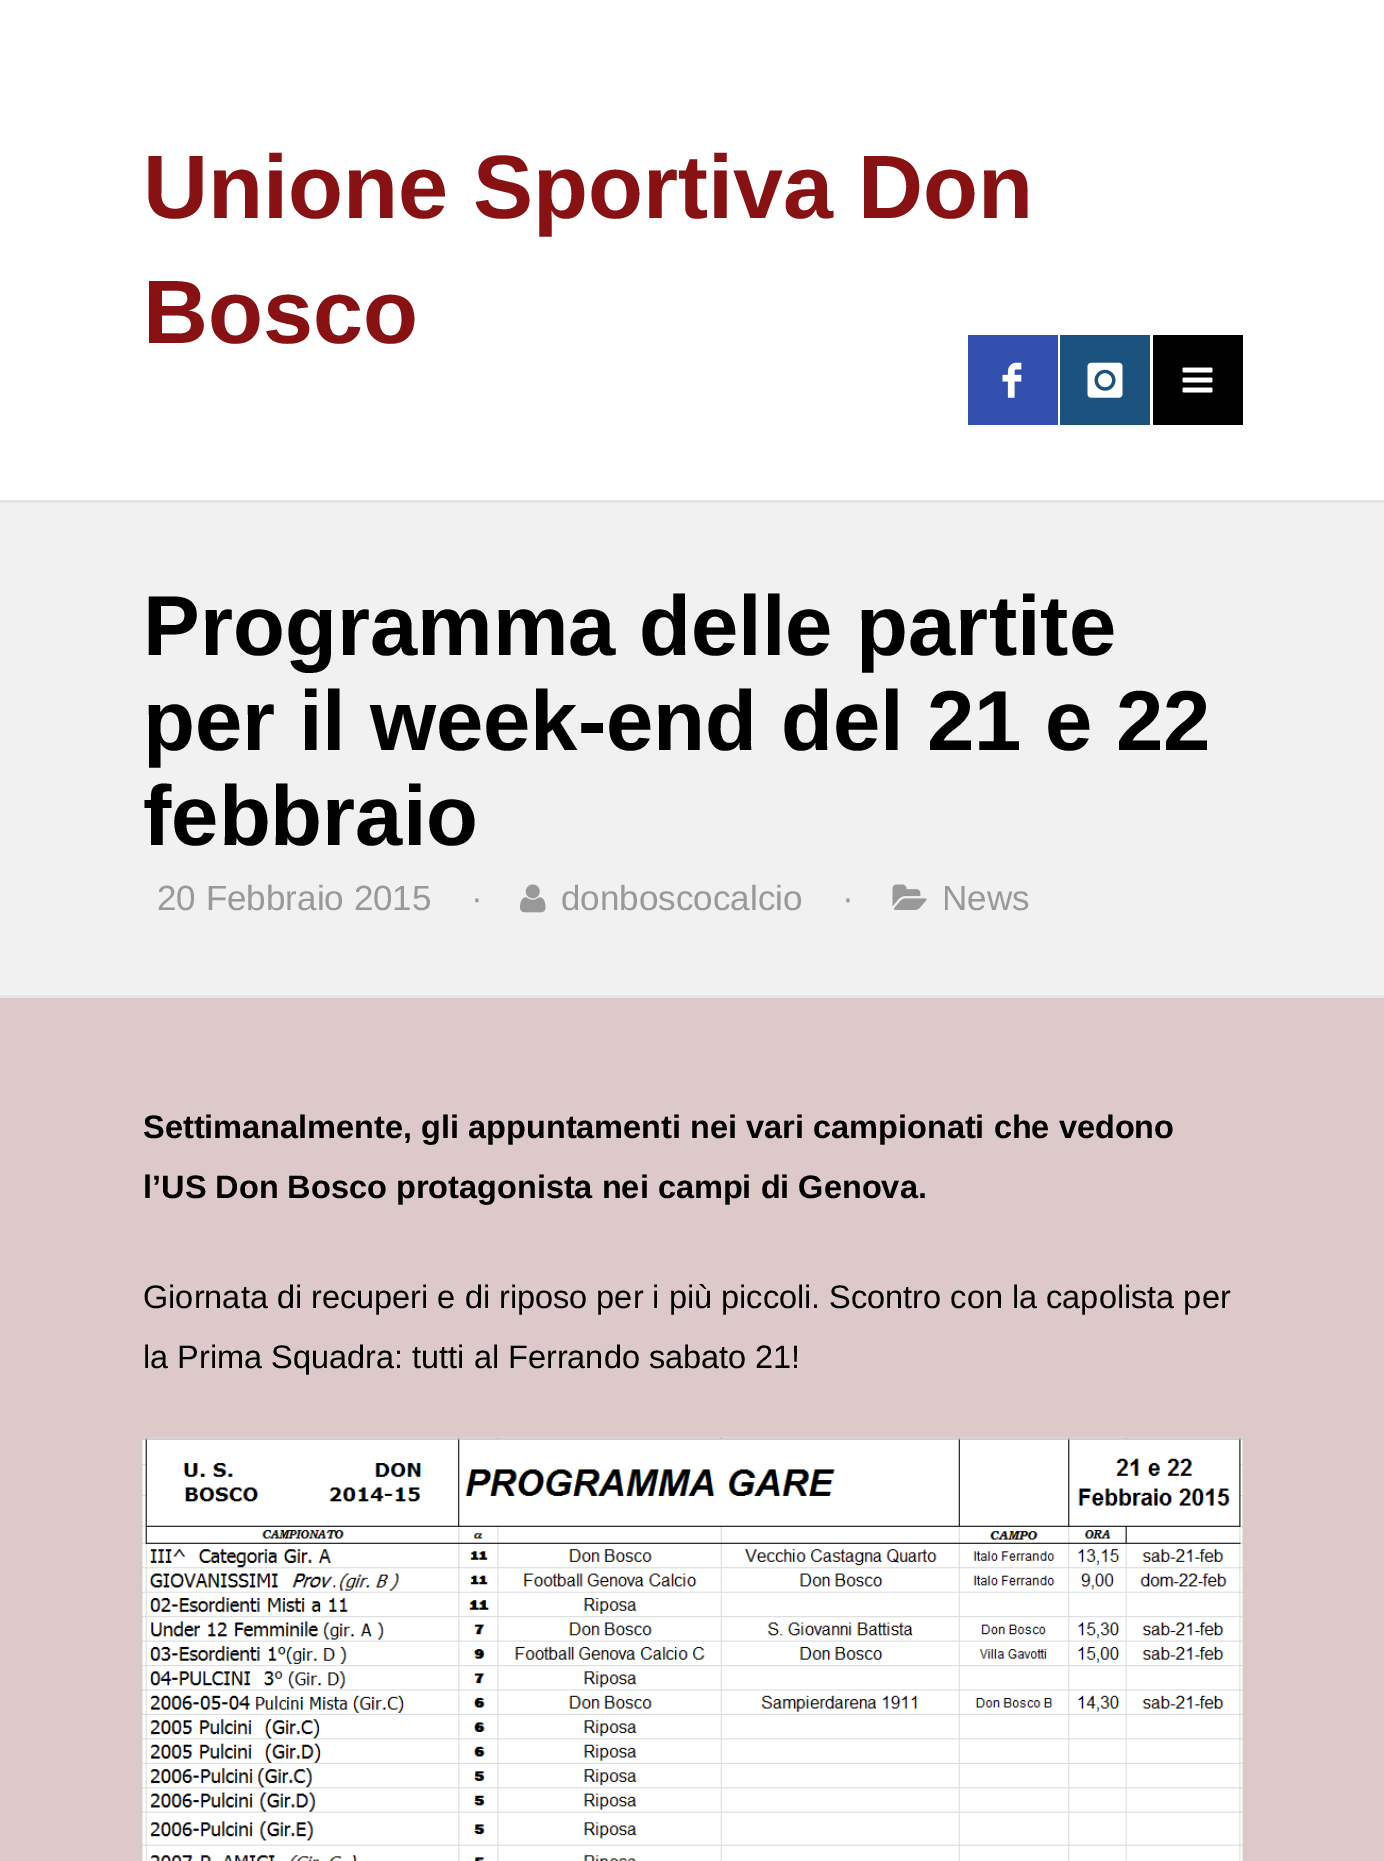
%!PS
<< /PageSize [1384 1861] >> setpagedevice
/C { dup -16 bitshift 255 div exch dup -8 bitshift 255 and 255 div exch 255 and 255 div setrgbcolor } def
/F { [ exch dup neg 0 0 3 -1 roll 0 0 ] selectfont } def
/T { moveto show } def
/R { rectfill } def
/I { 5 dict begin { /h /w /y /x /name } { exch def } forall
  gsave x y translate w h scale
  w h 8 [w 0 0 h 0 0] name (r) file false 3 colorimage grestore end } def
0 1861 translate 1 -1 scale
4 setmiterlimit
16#DDC9C9 C
0 0 1384 1861 R
16#FFFFFF C
0 0 1384 500 R
16#E5E5E5 C
0 500 1384 3 R
/Arimo-Bold 90 F
16#881113 C
(Unione Sportiva Don) 143 218 T
(Bosco) 143 343 T
16#3350AE C
968 335 90 90 R
(1.rgb) 1002 362 20 36 I
16#1C527E C
1060 335 90 90 R
(2.rgb) 1087 362 36 36 I
16#000000 C
1153 335 90 90 R
(3.rgb) 1182 367 31 26 I
16#F1F1F1 C
0 503 1384 492 R
16#E5E5E5 C
0 995 1384 3 R
/Arimo-Bold 85 F
16#000000 C
(Programma delle partite) 143 655 T
(per il week-end del 21 e 22) 143 750 T
(febbraio) 143 845 T
/Arimo-Regular 35 F
16#999999 C
(20 Febbraio 2015) 157 910 T
(·) 471 910 T
(4.rgb) 520 884 26 29 I
(donboscocalcio) 561 910 T
(·) 842 910 T
(5.rgb) 892 884 35 26 I
(News) 942 910 T
/Arimo-Bold 32.5 F
16#000000 C
(Settimanalmente, gli appuntamenti nei vari campionati che vedono) 143 1138 T
(l’US Don Bosco protagonista nei campi di Genova.) 143 1198 T
/Arimo-Regular 32.5 F
(Giornata di recuperi e di riposo per i più piccoli. Scontro con la capolista per) 143 1308 T
(la Prima Squadra: tutti al Ferrando sabato 21!) 143 1368 T
(6.rgb) 142 1437 1101 424 I
showpage
